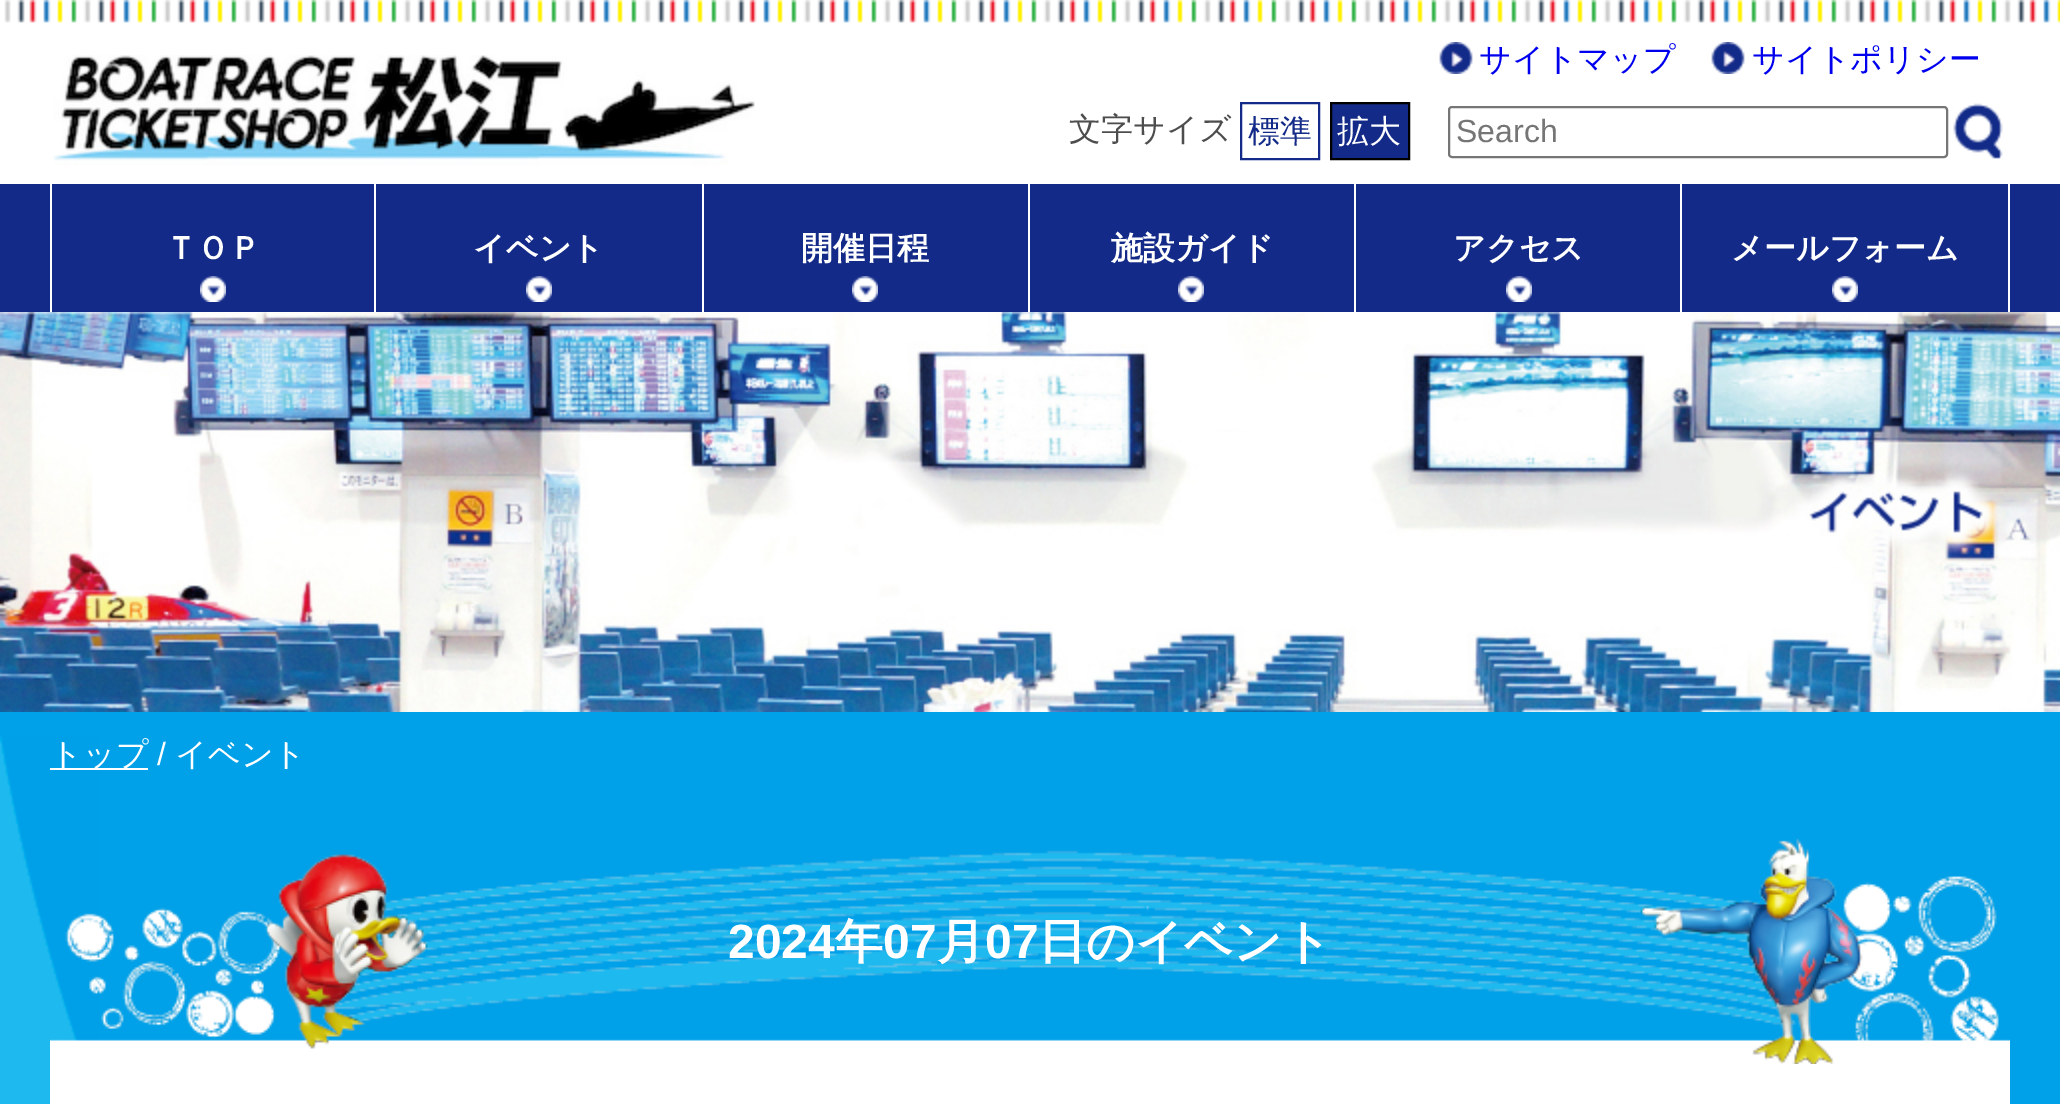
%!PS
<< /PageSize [2060 1104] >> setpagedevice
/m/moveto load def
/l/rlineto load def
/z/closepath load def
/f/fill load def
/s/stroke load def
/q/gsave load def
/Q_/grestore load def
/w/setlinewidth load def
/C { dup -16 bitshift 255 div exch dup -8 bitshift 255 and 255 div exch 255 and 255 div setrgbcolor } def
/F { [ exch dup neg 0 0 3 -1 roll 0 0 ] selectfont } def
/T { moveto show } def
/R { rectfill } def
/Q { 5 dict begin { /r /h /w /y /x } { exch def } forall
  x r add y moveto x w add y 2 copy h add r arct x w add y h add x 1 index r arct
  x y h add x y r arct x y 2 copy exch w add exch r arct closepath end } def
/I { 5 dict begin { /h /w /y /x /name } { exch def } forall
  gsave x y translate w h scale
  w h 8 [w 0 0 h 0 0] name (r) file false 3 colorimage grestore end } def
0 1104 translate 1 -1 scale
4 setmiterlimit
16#FFFFFF C
0 0 2060 1104 R
(1.rgb) 4 0 2056 23 I
(2.rgb) 53 55 702 111 I
(3.rgb) 1439 42 34 32 I
/WenQuanYiZenHei-Medium 32 F
16#0000EE C
(サイトマップ) 1479 70 T
(3.rgb) 1711 42 34 32 I
(サイトポリシー) 1752 70 T
16#4D4D4D C
(文字サイズ) 1069 140 T
16#132A88 C
2 w
1241 103 78 56 rectstroke
(標準) 1248 142 T
1331 103 m 78 0 l 0 56 l -78 0 l z q f Q_
16#000000 C
s
16#FFFFFF C
(拡大) 1337 142 T
16#767676 C
1449 107 498 50 3 Q s
/LiberationSans-Regular 32 F
16#757575 C
(Search) 1456 142 T
(4.rgb) 1953 103 50 56 I
16#132A88 C
0 184 2060 128 R
16#FFFFFF C
374 184 2 128 R
50 184 2 128 R
(5.rgb) 200 276 26 26 I
/WenQuanYiZenHei-Bold 32 F
(ＴＯＰ) 165 259 T
702 184 2 128 R
(5.rgb) 526 276 26 26 I
(イベント) 473 259 T
1028 184 2 128 R
(5.rgb) 852 276 26 26 I
(開催日程) 801 259 T
1354 184 2 128 R
(5.rgb) 1178 276 26 26 I
(施設ガイド) 1111 259 T
1680 184 2 128 R
(5.rgb) 1506 276 26 26 I
(アクセス) 1453 259 T
2008 184 2 128 R
(5.rgb) 1832 276 26 26 I
(メールフォーム) 1731 259 T
16#00A1E9 C
0 712 2060 392 R
(6.rgb) 0 736 99 368 I
(7.rgb) 0 312 2060 400 I
16#FFFFFF C
50 768 98 2 R
/WenQuanYiZenHei-Medium 32 F
(トップ) 50 765 T
/LiberationSans-Regular 32 F
(/) 157 765 T
/WenQuanYiZenHei-Medium 32 F
(イベント) 175 765 T
(8.rgb) 50 838 1960 226 I
/LiberationSans-Bold 48 F
(2024) 728 958 T
/WenQuanYiZenHei-Bold 48 F
(年) 835 958 T
/LiberationSans-Bold 48 F
(07) 883 958 T
/WenQuanYiZenHei-Bold 48 F
(月) 937 958 T
/LiberationSans-Bold 48 F
(07) 985 958 T
/WenQuanYiZenHei-Bold 48 F
(日のイベント) 1038 958 T
50 1064 1960 40 R
showpage
